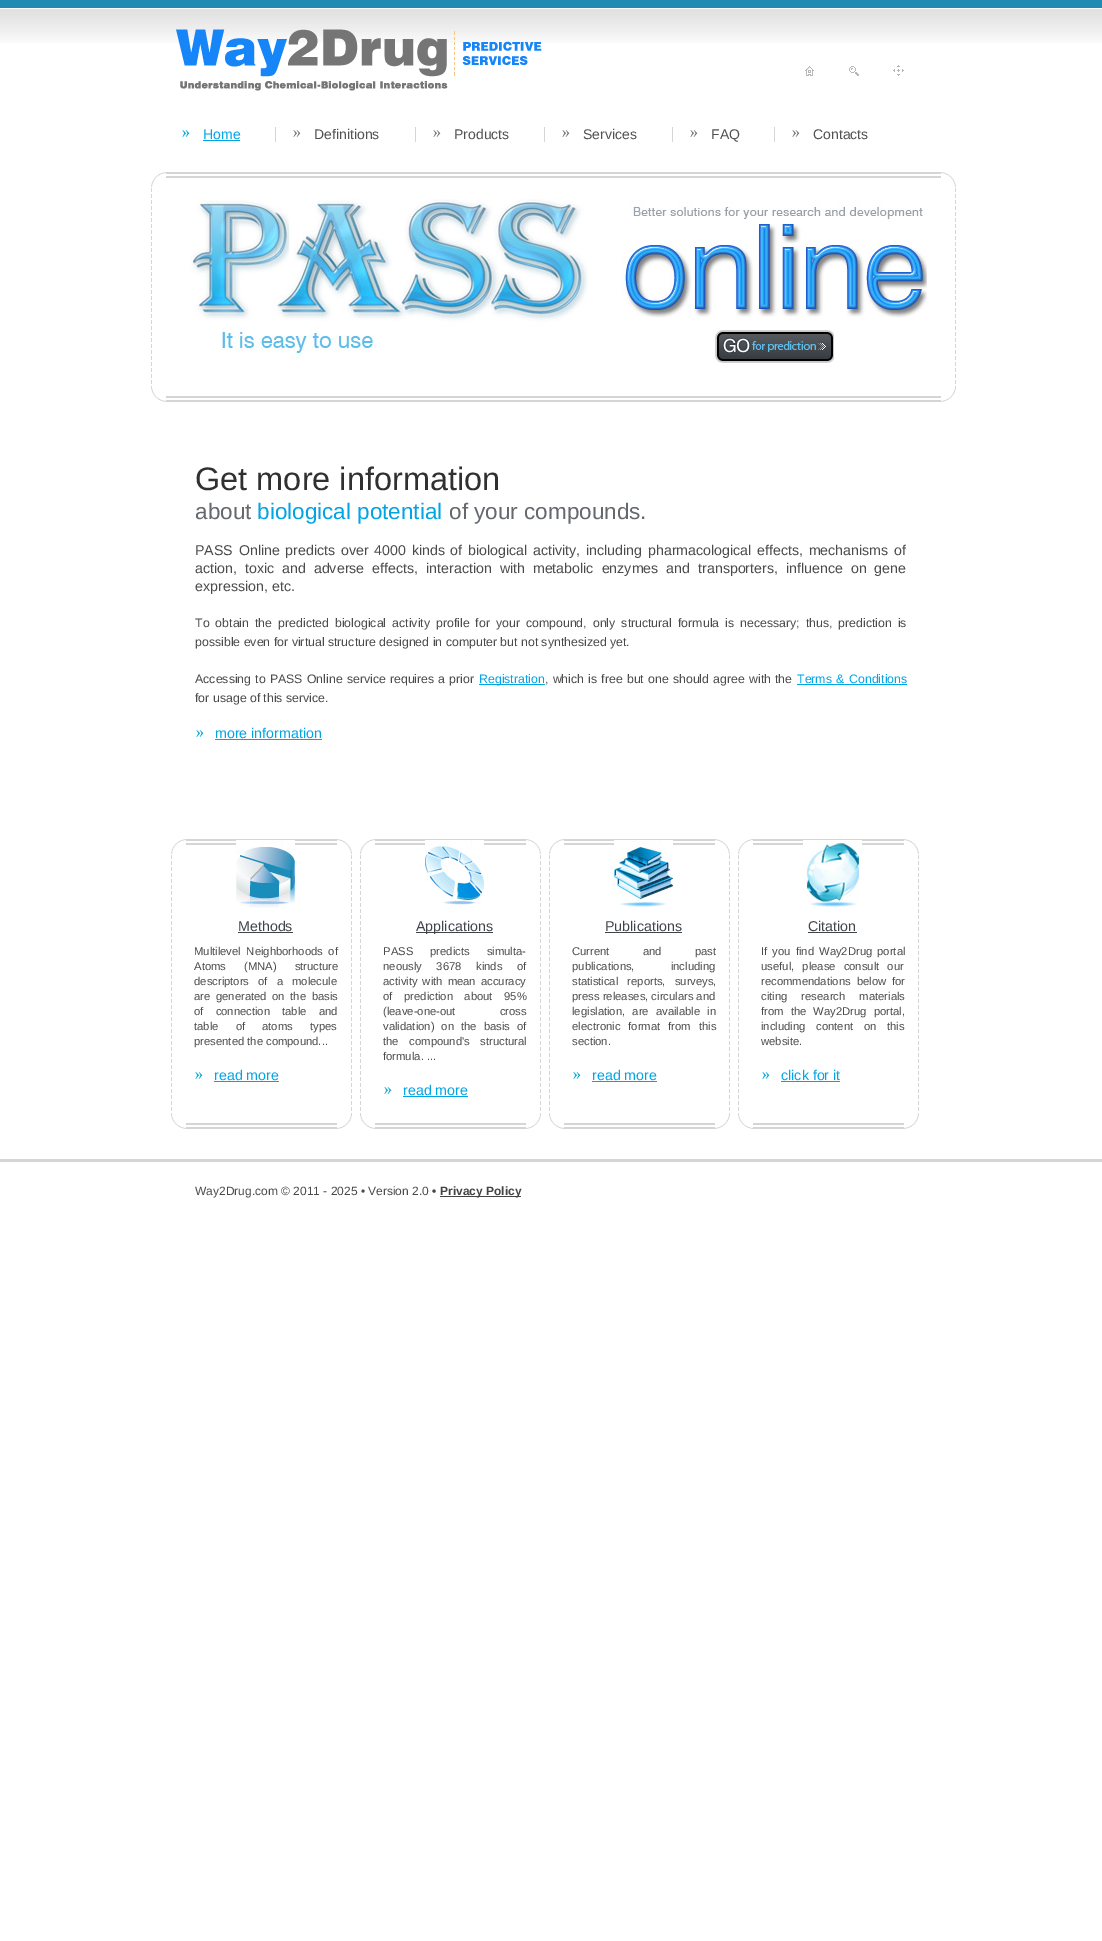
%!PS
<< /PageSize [1102 1941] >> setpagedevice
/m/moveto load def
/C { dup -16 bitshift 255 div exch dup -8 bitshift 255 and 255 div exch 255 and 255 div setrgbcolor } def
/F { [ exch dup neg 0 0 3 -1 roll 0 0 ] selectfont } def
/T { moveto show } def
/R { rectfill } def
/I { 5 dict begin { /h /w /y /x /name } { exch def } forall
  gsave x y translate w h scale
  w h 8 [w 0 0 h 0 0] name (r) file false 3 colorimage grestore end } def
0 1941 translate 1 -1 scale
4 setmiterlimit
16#FFFFFF C
0 0 1102 1941 R
16#D5D5D5 C
0 1159 1102 3 R
(1.rgb) 0 0 1102 43 I
(2.rgb) 176 29 366 62 I
(3.rgb) 805 66 9 10 I
(4.rgb) 849 66 10 10 I
(5.rgb) 893 65 11 11 I
275 127 1 15 R
(6.rgb) 182 130 8 7 I
/LiberationSans-Regular 14 F
16#01A5E4 C
(Home) 203 139 T
203 140 37 1 R
16#D5D5D5 C
415 127 1 15 R
(7.rgb) 293 130 8 7 I
16#515151 C
(Definitions) 314 139 T
16#D5D5D5 C
544 127 1 15 R
(7.rgb) 433 130 8 7 I
16#515151 C
(Products) 454 139 T
16#D5D5D5 C
672 127 1 15 R
(7.rgb) 562 130 8 7 I
16#515151 C
(Services) 583 139 T
16#D5D5D5 C
774 127 1 15 R
(7.rgb) 690 130 8 7 I
16#515151 C
(FAQ) 711 139 T
(7.rgb) 792 130 8 7 I
(Contacts) 813 139 T
(8.rgb) 166 172 775 6 I
(9.rgb) 955 187 1 201 I
(8.rgb) 166 396 775 6 I
(9.rgb) 151 187 1 201 I
(10.rgb) 151 172 15 15 I
(11.rgb) 941 172 15 15 I
(12.rgb) 941 388 15 14 I
(13.rgb) 151 388 15 14 I
(14.rgb) 190 199 398 160 I
(15.rgb) 621 200 306 118 I
(16.rgb) 714 330 120 33 I
/LiberationSans-Regular 32.5 F
16#303030 C
(Get more information) 195 490 T
/LiberationSans-Regular 22.5 F
16#65696D C
(about) 195 519 T
16#01A5E4 C
(biological potential) 257 519 T
16#65696D C
(of your compounds.) 449 519 T
/LiberationSans-Regular 14.22 F
16#4A4A4A C
195 555 m 1.75 0 32 (PASS Online predicts over 4000 kinds of biological activity, including pharmacological effects, mechanisms of) widthshow
195 573 m 4 0 32 (action, toxic and adverse effects, interaction with metabolic enzymes and transporters, influence on gene) widthshow
(expression, etc.) 195 591 T
/LiberationSans-Regular 12.32 F
195 627 m 2.6 0 32 (To obtain the predicted biological activity profile for your compound, only structural formula is necessary; thus, prediction is) widthshow
(possible even for virtual structure designed in computer but not synthesized yet.) 195 646 T
195 683 m .75 0 32 (Accessing to PASS Online service requires a prior) widthshow
16#01A5E4 C
479 684 66 1 R
(Registration) 479 683 T
16#4A4A4A C
545 683 m .75 0 32 (, which is free but one should agree with the) widthshow
16#01A5E4 C
797 683 m 1 0 32 (Terms & Conditions) widthshow
797 684 110 1 R
16#4A4A4A C
(for usage of this service.) 195 702 T
(6.rgb) 196 730 8 7 I
/LiberationSans-Regular 14.22 F
16#01A5E4 C
(more information) 215 738 T
215 739 107 1 R
(17.rgb) 186 839 151 6 I
(18.rgb) 351 854 1 261 I
(17.rgb) 186 1123 151 6 I
(18.rgb) 171 854 1 261 I
(10.rgb) 171 839 15 15 I
(11.rgb) 337 839 15 15 I
(12.rgb) 337 1115 15 14 I
(13.rgb) 171 1115 15 14 I
(19.rgb) 236 840 59 68 I
16#3F4449 C
(Methods) 238 931 T
238 932 55 1 R
/LiberationSans-Regular 11.25 F
16#4A4A4A C
194 955 m 2.5 0 32 (Multilevel Neighborhoods of) widthshow
194 970 m 15 0 32 (Atoms \(MNA\) structure) widthshow
194 985 m 6 0 32 (descriptors of a molecule) widthshow
194 1000 m 2.5 0 32 (are generated on the basis) widthshow
194 1015 m 9 0 32 (of connection table and) widthshow
194 1030 m 14 0 32 (table of atoms types) widthshow
(presented the compound...) 194 1045 T
(6.rgb) 195 1072 8 7 I
/LiberationSans-Regular 14.22 F
16#01A5E4 C
(read more) 214 1080 T
214 1081 65 1 R
(17.rgb) 375 839 151 6 I
(18.rgb) 540 854 1 261 I
(17.rgb) 375 1123 151 6 I
(18.rgb) 360 854 1 261 I
(10.rgb) 360 839 15 15 I
(11.rgb) 526 839 15 15 I
(12.rgb) 526 1115 15 14 I
(13.rgb) 360 1115 15 14 I
(20.rgb) 425 840 59 65 I
16#3F4449 C
416 932 77 1 R
(Applications) 416 931 T
/LiberationSans-Regular 11.25 F
16#4A4A4A C
383 955 m 14 0 32 (PASS predicts simulta-) widthshow
383 970 m 11.5 0 32 (neously 3678 kinds of) widthshow
383 985 m 2 0 32 (activity with mean accuracy) widthshow
383 1000 m 8.5 0 32 (of prediction about 95%) widthshow
383 1015 m 41 0 32 (\(leave-one-out cross) widthshow
383 1030 m 4 0 32 (validation\) on the basis of) widthshow
383 1045 m 7.5 0 32 (the compound's structural) widthshow
(formula. ...) 383 1060 T
(6.rgb) 384 1087 8 7 I
/LiberationSans-Regular 14.22 F
16#01A5E4 C
(read more) 403 1095 T
403 1096 65 1 R
(17.rgb) 564 839 151 6 I
(18.rgb) 729 854 1 261 I
(17.rgb) 564 1123 151 6 I
(18.rgb) 549 854 1 261 I
(10.rgb) 549 839 15 15 I
(11.rgb) 715 839 15 15 I
(12.rgb) 715 1115 15 14 I
(13.rgb) 549 1115 15 14 I
(21.rgb) 614 840 59 67 I
16#3F4449 C
(Publications) 605 931 T
605 932 77 1 R
/LiberationSans-Regular 11.25 F
16#4A4A4A C
572 955 m 30 0 32 (Current and past) widthshow
572 970 m 33 0 32 (publications, including) widthshow
572 985 m 6 0 32 (statistical reports, surveys,) widthshow
(press releases, circulars and) 572 1000 T
572 1015 m 4 0 32 (legislation, are available in) widthshow
572 1030 m 5 0 32 (electronic format from this) widthshow
(section.) 572 1045 T
(6.rgb) 573 1072 8 7 I
/LiberationSans-Regular 14.22 F
16#01A5E4 C
(read more) 592 1080 T
592 1081 65 1 R
(17.rgb) 753 839 151 6 I
(18.rgb) 918 854 1 261 I
(17.rgb) 753 1123 151 6 I
(18.rgb) 738 854 1 261 I
(10.rgb) 738 839 15 15 I
(11.rgb) 904 839 15 15 I
(12.rgb) 904 1115 15 14 I
(13.rgb) 738 1115 15 14 I
(22.rgb) 803 840 59 67 I
16#3F4449 C
(Citation) 808 931 T
808 932 49 1 R
/LiberationSans-Regular 11.25 F
16#4A4A4A C
761 955 m 2 0 32 (If you find Way2Drug portal) widthshow
761 970 m 5 0 32 (useful, please consult our) widthshow
761 985 m 3 0 32 (recommendations below for) widthshow
761 1000 m 11 0 32 (citing research materials) widthshow
761 1015 m 4 0 32 (from the Way2Drug portal,) widthshow
761 1030 m 7.5 0 32 (including content on this) widthshow
(website.) 761 1045 T
(6.rgb) 762 1072 8 7 I
/LiberationSans-Regular 14.22 F
16#01A5E4 C
(click for it) 781 1080 T
781 1081 59 1 R
/LiberationSans-Regular 12 F
16#4A4A4A C
(Way2Drug.com © 2011 - 2025 • Version 2.0) 195 1195 T
/LiberationSans-Bold 12 F
16#434343 C
(•) 432 1195 T
440 1196 81 1 R
(Privacy Policy) 440 1195 T
showpage
